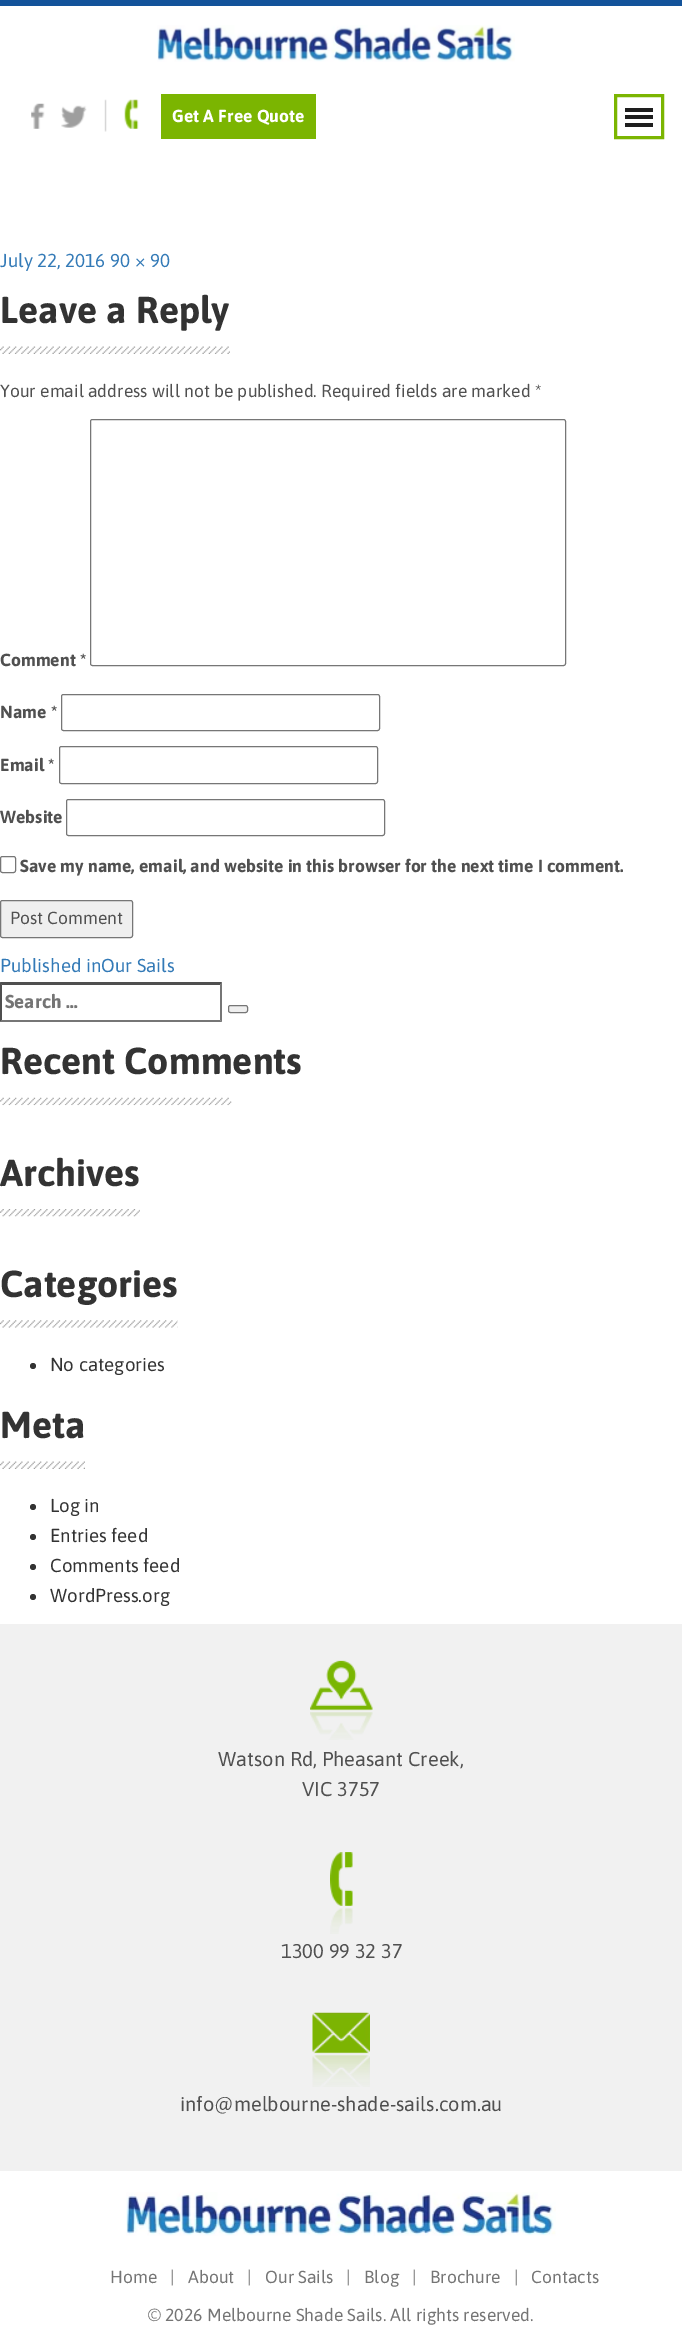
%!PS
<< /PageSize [682 2338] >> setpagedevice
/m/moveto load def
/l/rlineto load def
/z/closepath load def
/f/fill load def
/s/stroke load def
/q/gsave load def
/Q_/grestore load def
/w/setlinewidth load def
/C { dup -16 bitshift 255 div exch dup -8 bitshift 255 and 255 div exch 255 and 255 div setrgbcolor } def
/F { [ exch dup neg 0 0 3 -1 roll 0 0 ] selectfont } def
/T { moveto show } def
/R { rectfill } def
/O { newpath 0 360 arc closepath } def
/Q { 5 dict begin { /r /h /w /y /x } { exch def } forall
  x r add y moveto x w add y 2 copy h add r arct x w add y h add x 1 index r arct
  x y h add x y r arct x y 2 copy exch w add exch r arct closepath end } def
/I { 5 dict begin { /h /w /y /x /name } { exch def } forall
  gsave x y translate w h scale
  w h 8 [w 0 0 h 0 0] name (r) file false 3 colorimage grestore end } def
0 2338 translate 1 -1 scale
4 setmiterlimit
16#FFFFFF C
0 0 682 2338 R
16#13539A C
0 0 682 6 R
(1.rgb) 157 25 358 37 I
(2.rgb) 31 103 14 26 I
(3.rgb) 61 105 26 23 I
(4.rgb) 104 99 3 33 I
(5.rgb) 124 99 15 30 I
16#7BB501 C
161 94 155 45 R
/Asap-Bold 17.5 F
16#FFFFFF C
(Get A Free Quote) 172 122 T
16#7BB501 C
3 w
615.5 95.5 47 42 rectstroke
16#1E1E1E C
625 108 28 4 R
625 115 28 4 R
625 123 28 4 R
/Asap-Regular 18.75 F
16#337AB7 C
(July 22, 2016 90 × 90) 0 267 T
/Asap-Bold 37.5 F
16#333333 C
(Leave a Reply) 0 323 T
(6.rgb) 0 346 230 8 I
/Asap-Regular 17.5 F
16#505050 C
(Your email address will not be published. Required fields are marked *) 0 397 T
/Asap-Bold 17.5 F
(Comment *) 0 666 T
16#767676 C
1 w
90.5 419.5 475 246 2 Q s
16#505050 C
(Name *) 0 718 T
16#767676 C
61.5 694.5 318 36 2 Q s
16#505050 C
(Email *) 0 771 T
16#767676 C
59.5 746.5 318 37 2 Q s
16#505050 C
(Website) 0 823 T
16#767676 C
66.5 799.5 318 36 2 Q s
.5 856.5 15 16 2 Q s
16#505050 C
(Save my name, email, and website in this browser for the next time I comment.) 20 872 T
16#EFEFEF C
.5 900.5 132 37 2 Q q f Q_
16#767676 C
s
/Asap-Regular 17.5 F
16#505050 C
(Post Comment) 10 924 T
/Asap-Regular 18.75 F
16#337AB7 C
(Published inOur Sails) 0 972 T
16#4F4F4F C
0 982 m 222 0 l -2 3 l -218 0 l z f
16#767676 C
222 982 m 0 40 l -2 -2 l 0 -35 l z f
222 1022 m -222 0 l 2 -2 l 218 0 l z f
16#4F4F4F C
0 1022 m 0 -40 l 2 3 l 0 35 l z f
/Asap-Bold 18.75 F
16#757575 C
(Search …) 5 1008 T
16#EFEFEF C
228.5 1005.5 19 7 2 Q q f Q_
16#767676 C
s
/Asap-Bold 37.5 F
16#333333 C
(Recent Comments) 0 1074 T
(7.rgb) 0 1097 232 9 I
(Archives) 0 1186 T
(8.rgb) 0 1209 140 8 I
(Categories) 0 1297 T
(9.rgb) 0 1320 178 8 I
33 1366 3 O f
/Asap-Regular 18.75 F
(No categories) 50 1371 T
/Asap-Bold 37.5 F
(Meta) 0 1438 T
(10.rgb) 0 1461 85 8 I
33 1507 3 O f
/Asap-Regular 18.75 F
(Log in) 50 1512 T
33 1537 3 O f
(Entries feed) 50 1542 T
33 1567 3 O f
(Comments feed) 50 1572 T
33 1597 3 O f
(WordPress.org) 50 1602 T
16#F1F1F1 C
0 1624 682 547 R
(11.rgb) 310 1660 63 80 I
/Asap-Regular 20 F
16#505050 C
(Watson Rd, Pheasant Creek,) 218 1766 T
(VIC 3757) 302 1796 T
(12.rgb) 330 1852 23 82 I
(1300 99 32 37) 281 1958 T
(13.rgb) 312 2012 58 75 I
(info@melbourne-shade-sails.com.au) 180 2111 T
(14.rgb) 126 2192 430 44 I
/Asap-Regular 17.5 F
16#757575 C
(Home) 110 2283 T
(|) 170 2283 T
(About) 188 2283 T
(|) 247 2283 T
(Our Sails) 265 2283 T
(|) 346 2283 T
(Blog) 364 2283 T
(|) 412 2283 T
(Brochure) 430 2283 T
(|) 514 2283 T
(Contacts) 531 2283 T
(© 2026 Melbourne Shade Sails. All rights reserved.) 148 2321 T
showpage
